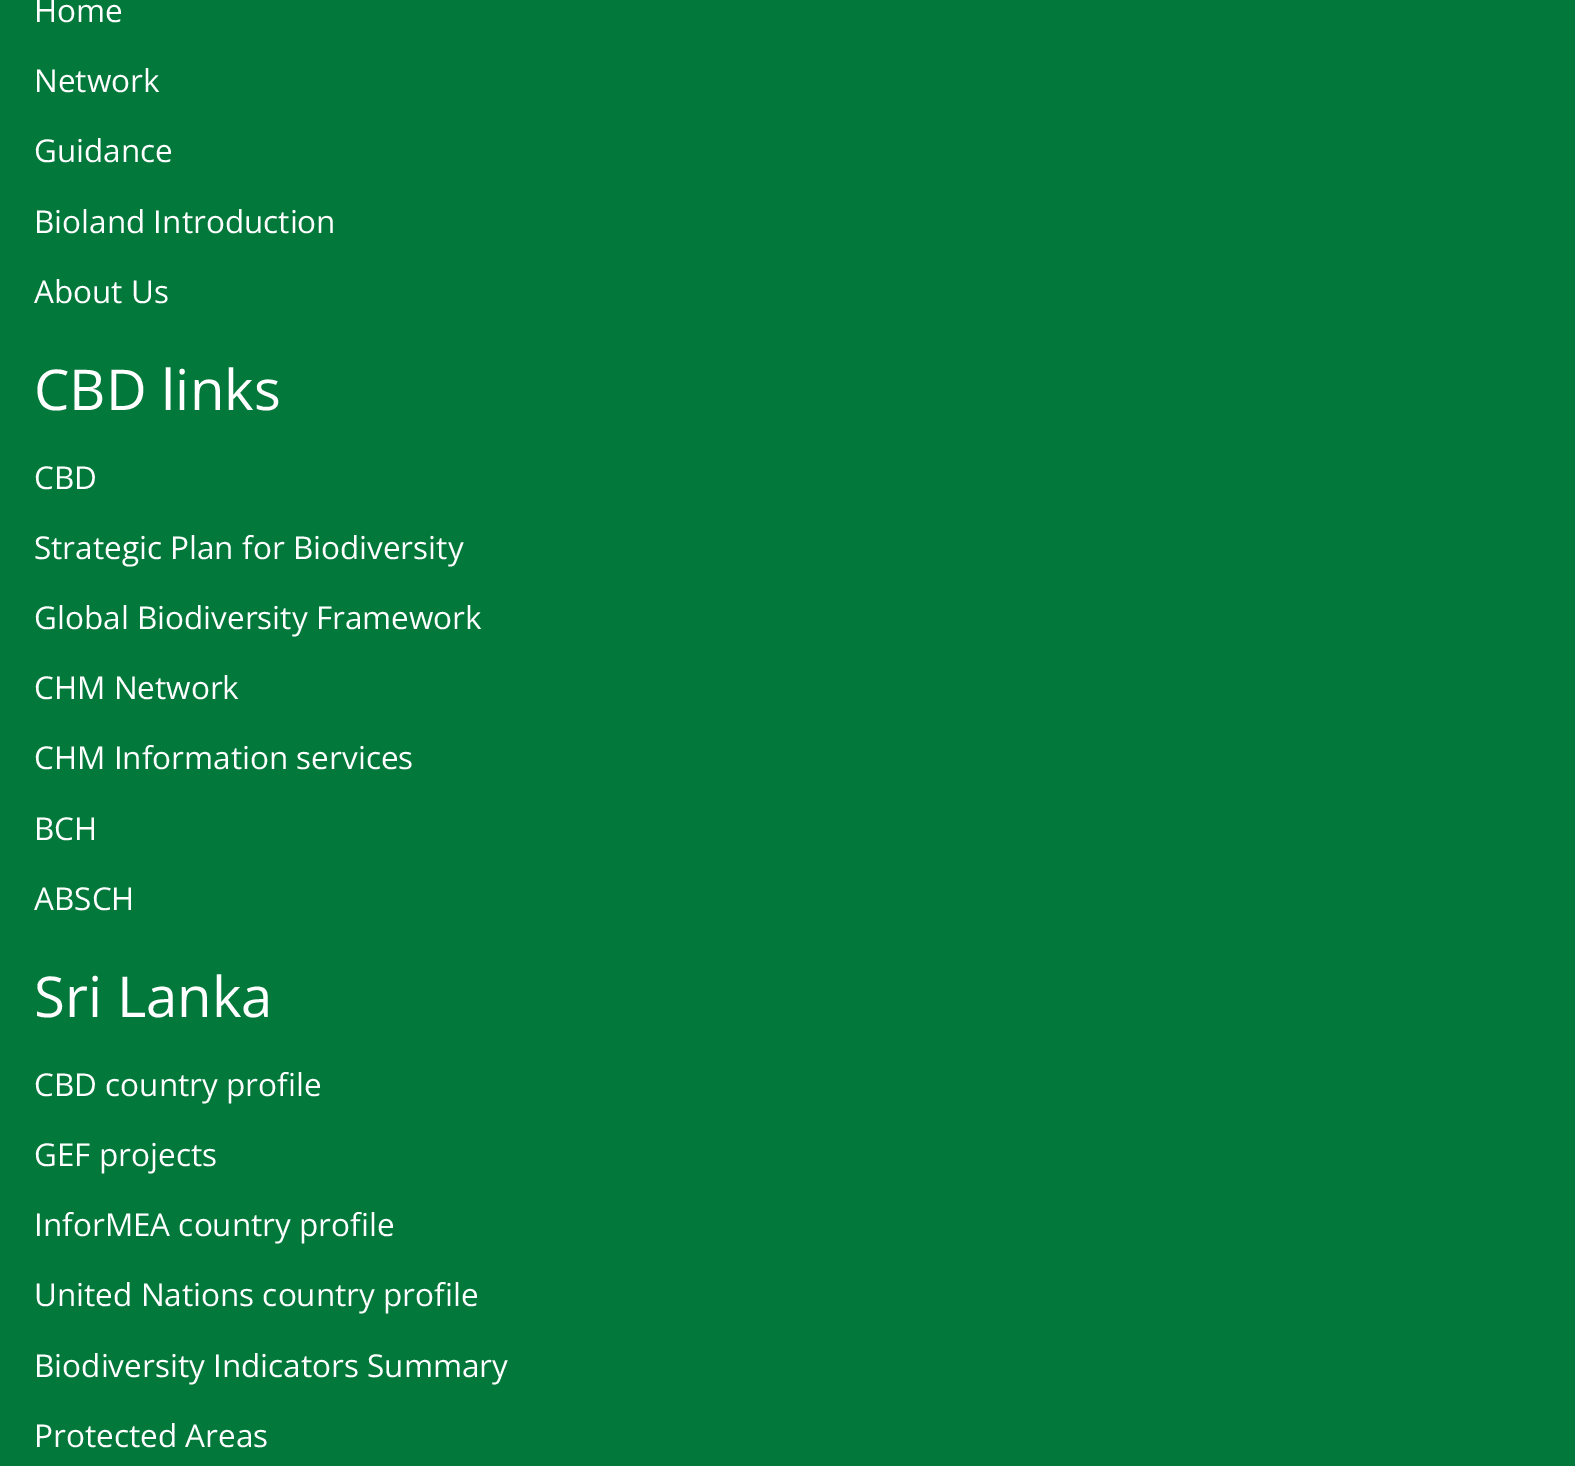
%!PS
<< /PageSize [1575 1466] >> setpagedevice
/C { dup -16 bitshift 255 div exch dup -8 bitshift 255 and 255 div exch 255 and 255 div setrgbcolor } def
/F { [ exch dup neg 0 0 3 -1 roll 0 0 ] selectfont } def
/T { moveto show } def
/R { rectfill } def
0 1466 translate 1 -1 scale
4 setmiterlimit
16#02783A C
0 0 1575 1466 R
/OpenSans-Regular 31.5 F
16#FFFFFF C
(Home) 34 22 T
(Network) 34 92 T
(Guidance) 34 162 T
(Bioland Introduction) 34 233 T
(About Us) 34 303 T
/OpenSans-Regular 56.25 F
(CBD links) 34 410 T
/OpenSans-Regular 31.5 F
(CBD) 34 489 T
(Strategic Plan for Biodiversity) 34 559 T
(Global Biodiversity Framework) 34 629 T
(CHM Network) 34 699 T
(CHM Information services) 34 769 T
(BCH) 34 840 T
(ABSCH) 34 910 T
/OpenSans-Regular 56.25 F
(Sri Lanka) 34 1017 T
/OpenSans-Regular 31.5 F
(CBD country profile) 34 1096 T
(GEF projects) 34 1166 T
(InforMEA country profile) 34 1236 T
(United Nations country profile) 34 1306 T
(Biodiversity Indicators Summary) 34 1377 T
(Protected Areas) 34 1447 T
showpage
